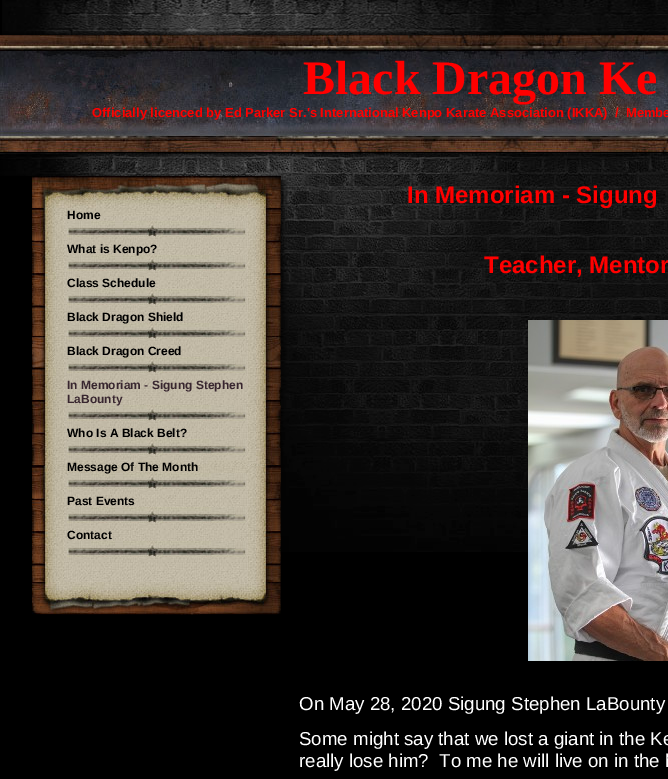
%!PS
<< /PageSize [668 779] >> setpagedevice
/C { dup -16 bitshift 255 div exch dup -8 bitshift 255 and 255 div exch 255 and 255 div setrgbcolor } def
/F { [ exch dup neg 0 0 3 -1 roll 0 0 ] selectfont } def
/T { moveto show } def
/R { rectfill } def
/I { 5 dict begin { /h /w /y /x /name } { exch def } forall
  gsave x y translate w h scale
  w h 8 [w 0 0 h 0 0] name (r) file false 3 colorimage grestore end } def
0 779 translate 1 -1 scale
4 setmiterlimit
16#000000 C
0 0 668 779 R
(1.rgb) 2 0 666 35 I
(2.rgb) 0 35 668 117 I
/LiberationSerif-Bold 48 F
16#FF0000 C
(Black Dragon Ke) 303 94 T
/LiberationSans-Bold 13 F
(Officially licenced by Ed Parker Sr.'s International Kenpo Karate Association \(IKKA\)  /  Membe) 92 117 T
(3.rgb) 0 153 668 23 I
(4.rgb) 32 176 249 32 I
(5.rgb) 32 208 249 374 I
(6.rgb) 67 221 179 21 I
/LiberationSans-Bold 12 F
16#000000 C
(Home) 67 219 T
(6.rgb) 67 255 179 21 I
(What is Kenpo?) 67 253 T
(6.rgb) 67 289 179 21 I
(Class Schedule) 67 287 T
(6.rgb) 67 323 179 21 I
(Black Dragon Shield) 67 321 T
(6.rgb) 67 357 179 21 I
(Black Dragon Creed) 67 355 T
(6.rgb) 67 405 179 21 I
16#38262F C
(In Memoriam - Sigung Stephen) 67 389 T
(LaBounty) 67 403 T
(6.rgb) 67 439 179 21 I
16#000000 C
(Who Is A Black Belt?) 67 437 T
(6.rgb) 67 473 179 21 I
(Message Of The Month) 67 471 T
(6.rgb) 67 507 179 21 I
(Past Events) 67 505 T
(6.rgb) 67 541 179 21 I
(Contact) 67 539 T
(7.rgb) 32 582 249 33 I
(8.rgb) 281 176 387 376 I
/LiberationSans-Bold 24 F
16#FF0000 C
(In Memoriam - Sigung) 407 203 T
(Teacher, Mentor) 484 273 T
(9.rgb) 528 320 140 341 I
/LiberationSans-Regular 18.7 F
16#FFFFFF C
(On May 28, 2020 Sigung Stephen LaBounty) 299 710 T
(Some might say that we lost a giant in the Ke) 299 745 T
(really lose him?  To me he will live on in the h) 299 767 T
showpage
